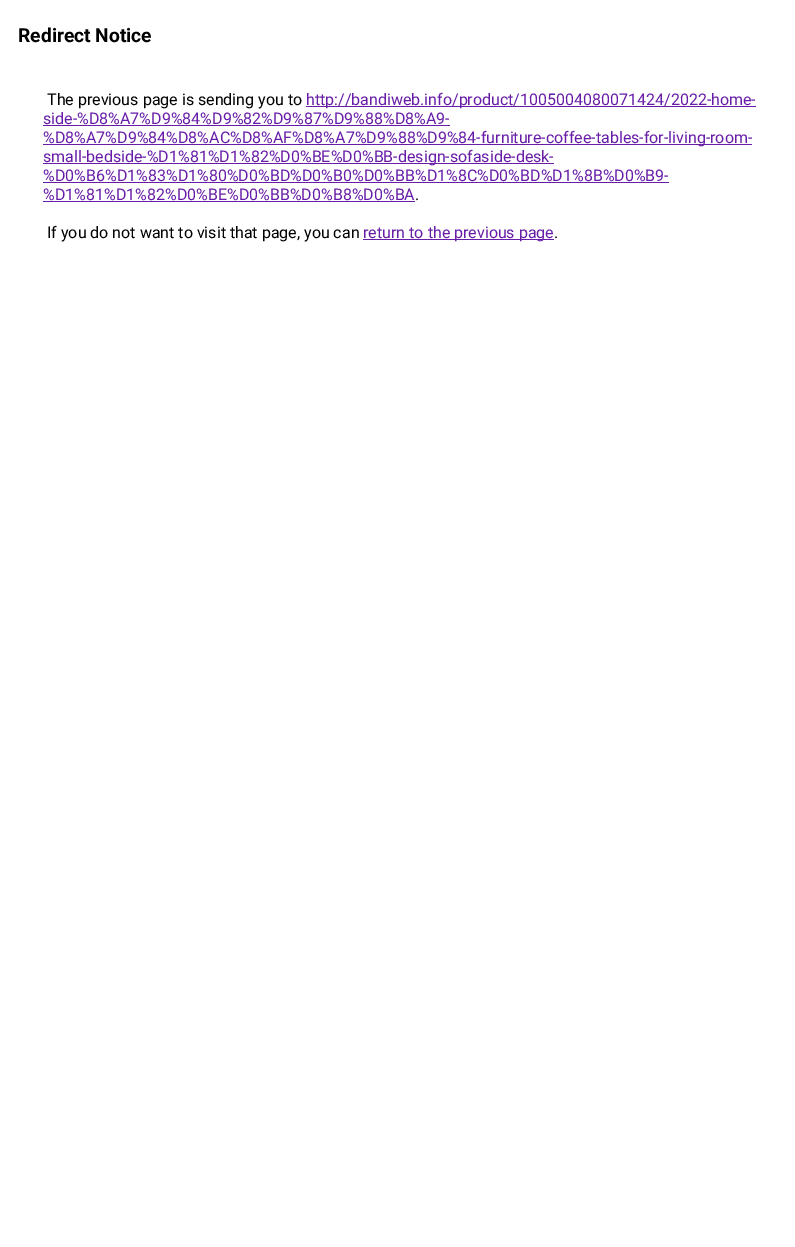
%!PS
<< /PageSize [795 1247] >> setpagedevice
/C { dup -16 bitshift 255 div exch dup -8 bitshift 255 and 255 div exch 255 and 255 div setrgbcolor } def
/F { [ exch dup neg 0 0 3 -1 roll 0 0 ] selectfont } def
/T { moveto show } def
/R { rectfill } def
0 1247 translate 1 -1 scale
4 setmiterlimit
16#FFFFFF C
0 0 795 1247 R
/Roboto-Bold 19.25 F
16#000000 C
(Redirect Notice) 18 42 T
/Roboto-Regular 16 F
(The previous page is sending you to) 47 105 T
16#681DA8 C
306 106 450 1 R
(http://bandiweb.info/product/1005004080071424/2022-home-) 306 105 T
(side-%D8%A7%D9%84%D9%82%D9%87%D9%88%D8%A9-) 43 124 T
43 125 407 1 R
43 144 709 1 R
(%D8%A7%D9%84%D8%AC%D8%AF%D8%A7%D9%88%D9%84-furniture-coffee-tables-for-living-room-) 43 143 T
43 163 511 1 R
(small-bedside-%D1%81%D1%82%D0%BE%D0%BB-design-sofaside-desk-) 43 162 T
(%D0%B6%D1%83%D1%80%D0%BD%D0%B0%D0%BB%D1%8C%D0%BD%D1%8B%D0%B9-) 43 181 T
43 182 626 1 R
(%D1%81%D1%82%D0%BE%D0%BB%D0%B8%D0%BA) 43 200 T
43 201 372 1 R
16#000000 C
(.) 415 200 T
(If you do not want to visit that page, you can) 47 238 T
16#681DA8 C
363 239 191 1 R
(return to the previous page) 363 238 T
16#000000 C
(.) 554 238 T
showpage
